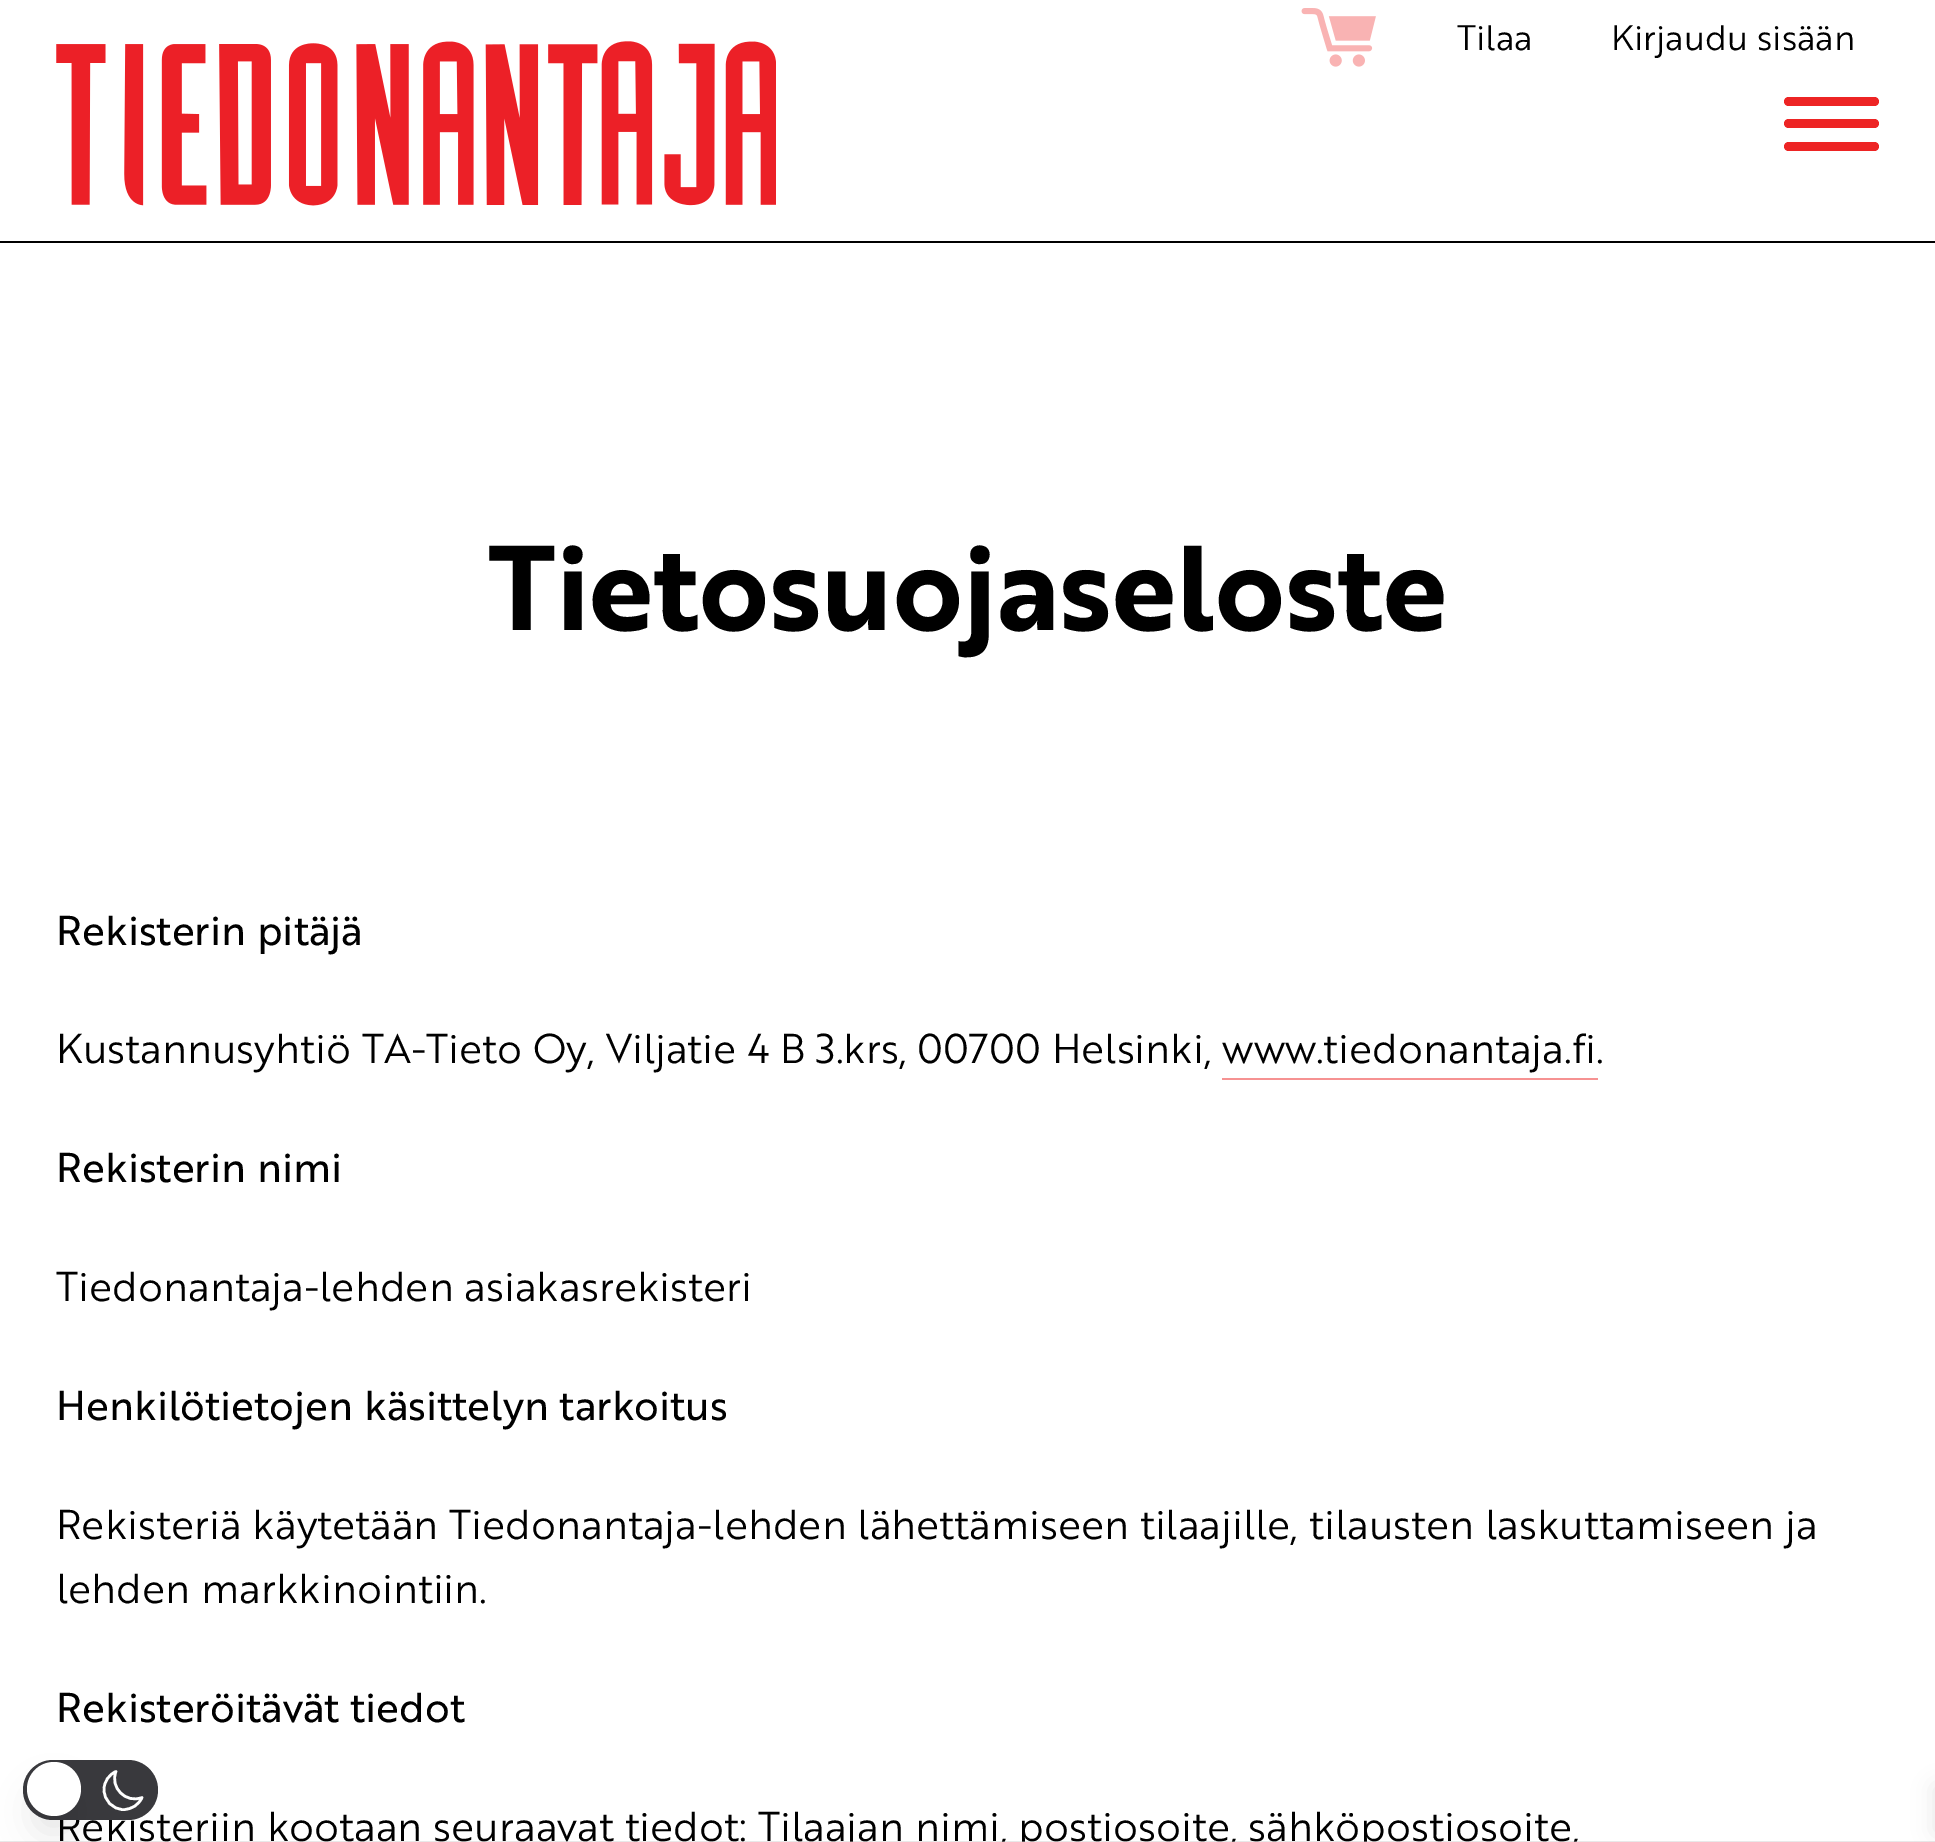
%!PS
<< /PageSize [1935 1842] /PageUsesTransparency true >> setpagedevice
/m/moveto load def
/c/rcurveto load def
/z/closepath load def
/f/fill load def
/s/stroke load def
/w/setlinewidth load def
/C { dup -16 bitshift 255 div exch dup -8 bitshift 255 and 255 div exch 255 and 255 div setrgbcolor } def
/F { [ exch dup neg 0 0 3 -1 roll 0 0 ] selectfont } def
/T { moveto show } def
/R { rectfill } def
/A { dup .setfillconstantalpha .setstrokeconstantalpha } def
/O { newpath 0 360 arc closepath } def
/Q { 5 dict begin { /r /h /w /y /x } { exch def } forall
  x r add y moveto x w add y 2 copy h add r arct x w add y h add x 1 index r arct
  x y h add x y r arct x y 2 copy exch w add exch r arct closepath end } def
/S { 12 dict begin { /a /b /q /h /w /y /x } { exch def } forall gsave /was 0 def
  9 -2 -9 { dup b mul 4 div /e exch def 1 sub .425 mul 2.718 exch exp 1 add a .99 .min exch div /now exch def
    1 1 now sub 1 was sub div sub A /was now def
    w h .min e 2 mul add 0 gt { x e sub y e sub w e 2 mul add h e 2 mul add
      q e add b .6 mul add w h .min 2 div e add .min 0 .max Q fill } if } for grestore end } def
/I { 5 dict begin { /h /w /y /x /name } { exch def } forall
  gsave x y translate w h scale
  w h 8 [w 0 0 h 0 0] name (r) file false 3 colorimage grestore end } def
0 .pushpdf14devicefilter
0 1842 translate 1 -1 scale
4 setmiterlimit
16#FFFFFF C
0 0 1935 1842 R
16#000000 C
0 241 1935 2 R
(1.rgb) 1301 8 75 59 I
/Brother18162-Regular 34.5 F
(Tilaa) 1457 50 T
(Kirjaudu sisään) 1611 50 T
(2.rgb) 56 41 720 165 I
16#ED2424 C
1784 119 95 9 4.5 Q f
1784 97 95 9 4.5 Q f
1784 142 95 9 4.5 Q f
/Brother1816-Bold 117 F
16#000000 C
(Tietosuojaseloste) 488 630 T
/Brother1816-Regular 40.5 F
(Rekisterin pitäjä) 56 945 T
/Brother18162-Regular 40.5 F
(Kustannusyhtiö TA-Tieto Oy, Viljatie 4 B 3.krs, 00700 Helsinki, www.tiedonantaja.fi.) 56 1063 T
16#F69292 C
1222 1078 376 2 R
/Brother1816-Regular 40.5 F
16#000000 C
(Rekisterin nimi) 56 1182 T
/Brother18162-Regular 40.5 F
(Tiedonantaja-lehden asiakasrekisteri) 56 1301 T
/Brother1816-Regular 40.5 F
(Henkilötietojen käsittelyn tarkoitus) 56 1420 T
/Brother18162-Regular 40.5 F
(Rekisteriä käytetään Tiedonantaja-lehden lähettämiseen tilaajille, tilausten laskuttamiseen ja) 56 1539 T
(lehden markkinointiin.) 56 1603 T
/Brother1816-Regular 40.5 F
(Rekisteröitävät tiedot) 56 1722 T
/Brother18162-Regular 40.5 F
(Rekisteriin kootaan seuraavat tiedot: Tilaajan nimi, postiosoite, sähköpostiosoite,) 56 1841 T
0.4 A
16#C8C8C8 C
0 1841 1935 1 R
1 A
16#39393D C
23 1760 135 60 30 Q f
16#FFFFFF C
2.6 w
1 setlinecap
1 setlinejoin
142 1797.5 m -16 6.5 -32.5 -10 -26 -26 c -7 3 -12 10 -12 18 c 0 11 8.5 20 19.5 20 c 8.5 0 15.5 -5 18.5 -12 c z s
16#000000 C
34 1791 40 41 20 17 .1 S
16#FFFFFF C
54 1789 27 O f
16#000000 C
1935 1787 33 45 0 11 .1 S
.poppdf14devicefilter showpage
